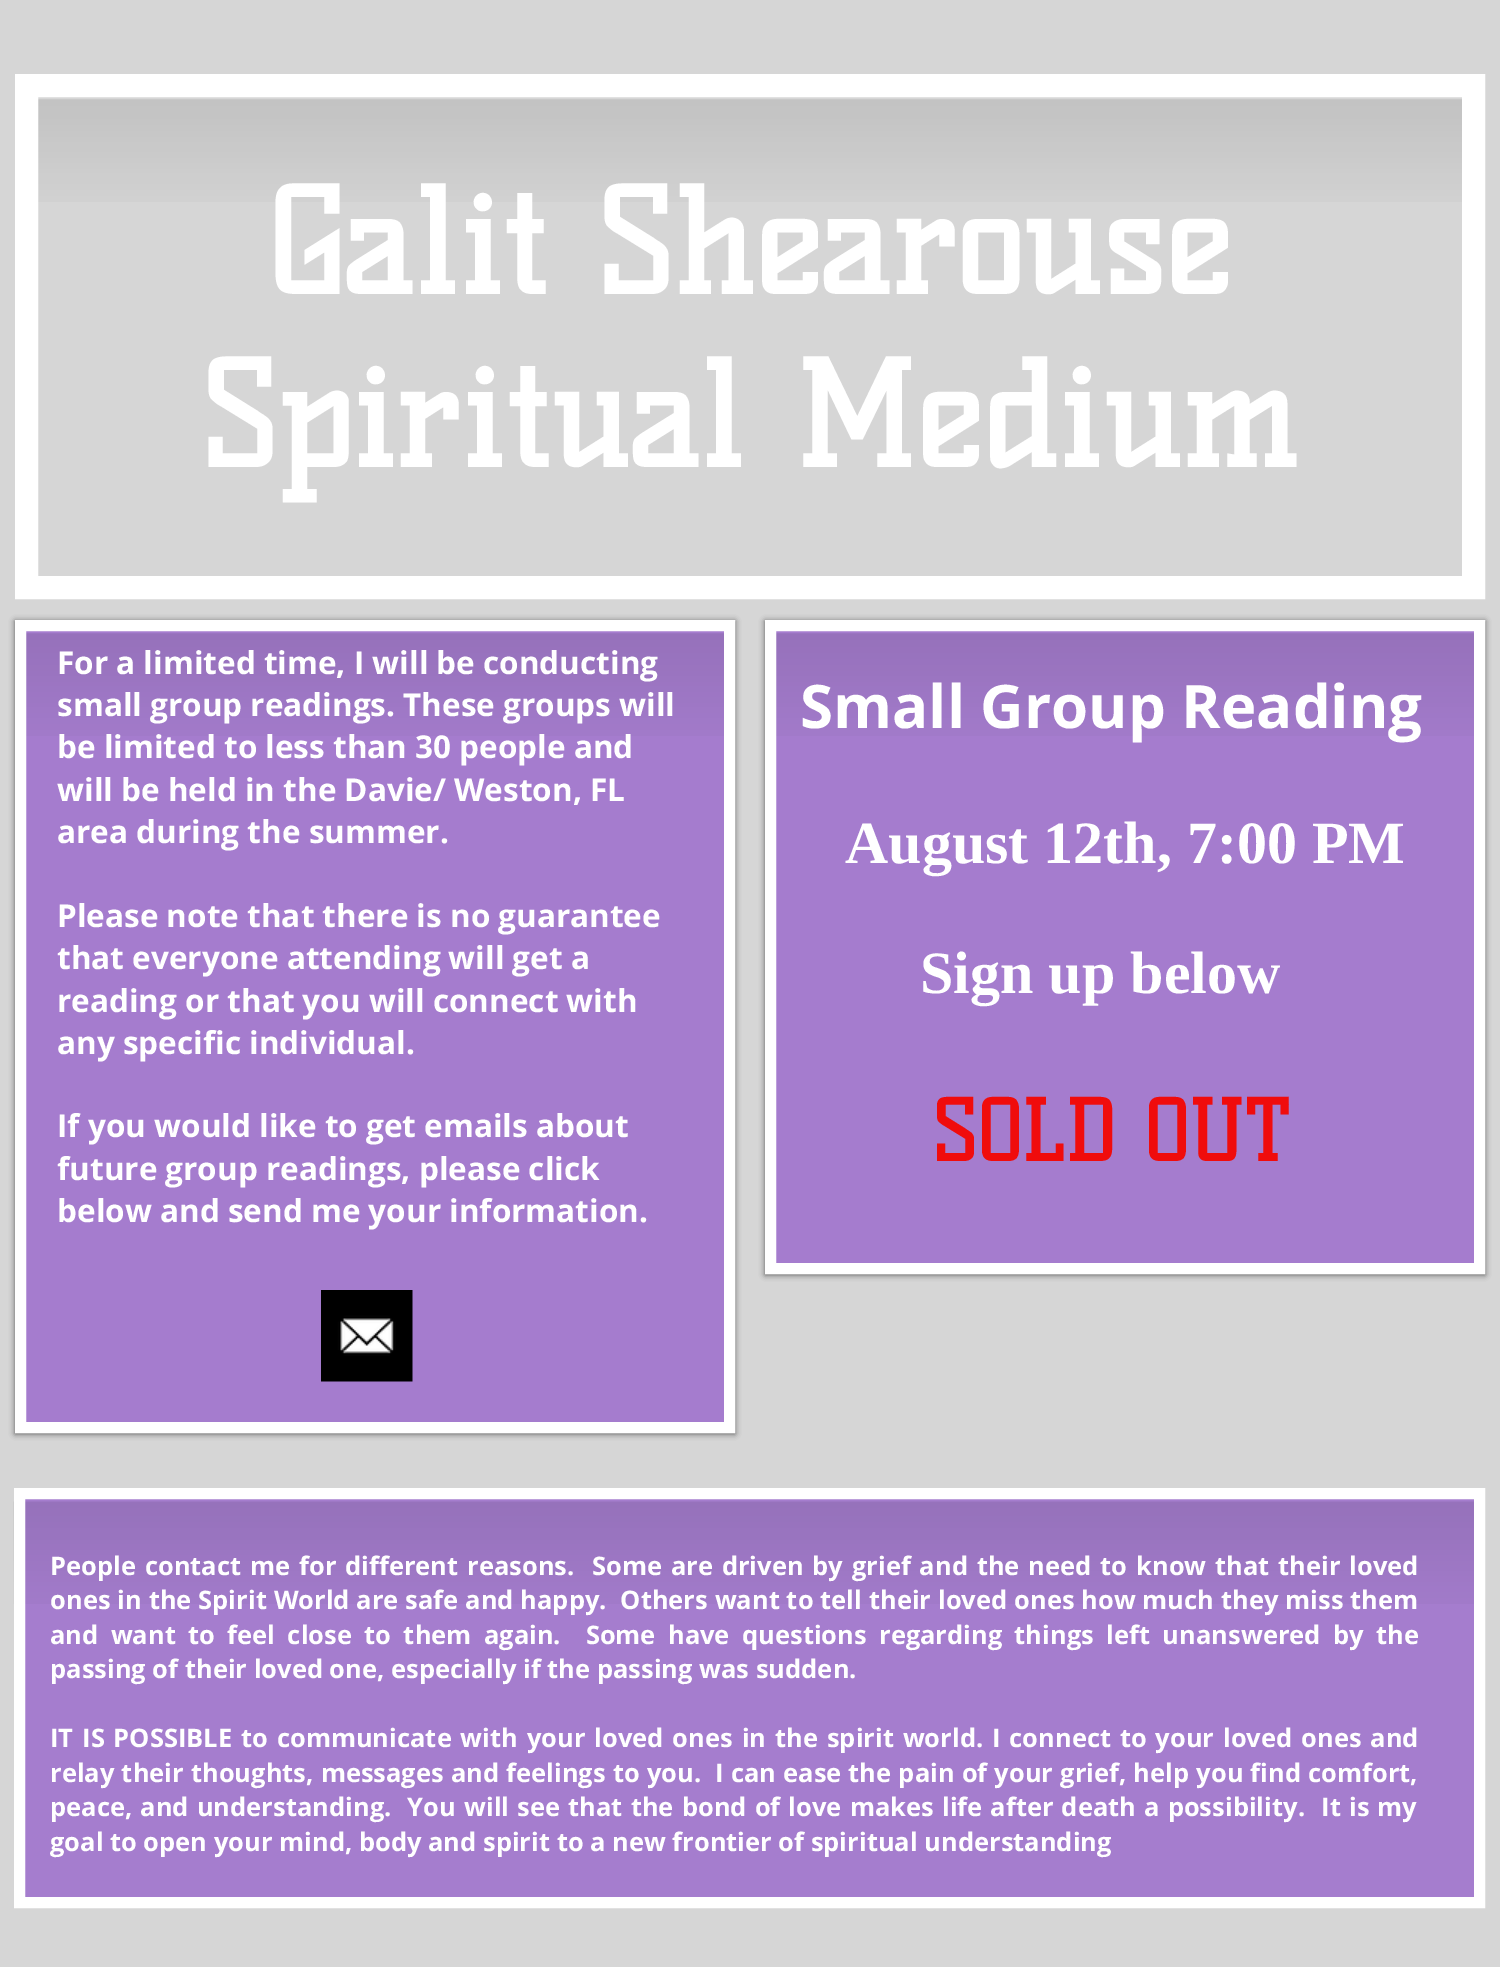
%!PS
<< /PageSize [1500 1967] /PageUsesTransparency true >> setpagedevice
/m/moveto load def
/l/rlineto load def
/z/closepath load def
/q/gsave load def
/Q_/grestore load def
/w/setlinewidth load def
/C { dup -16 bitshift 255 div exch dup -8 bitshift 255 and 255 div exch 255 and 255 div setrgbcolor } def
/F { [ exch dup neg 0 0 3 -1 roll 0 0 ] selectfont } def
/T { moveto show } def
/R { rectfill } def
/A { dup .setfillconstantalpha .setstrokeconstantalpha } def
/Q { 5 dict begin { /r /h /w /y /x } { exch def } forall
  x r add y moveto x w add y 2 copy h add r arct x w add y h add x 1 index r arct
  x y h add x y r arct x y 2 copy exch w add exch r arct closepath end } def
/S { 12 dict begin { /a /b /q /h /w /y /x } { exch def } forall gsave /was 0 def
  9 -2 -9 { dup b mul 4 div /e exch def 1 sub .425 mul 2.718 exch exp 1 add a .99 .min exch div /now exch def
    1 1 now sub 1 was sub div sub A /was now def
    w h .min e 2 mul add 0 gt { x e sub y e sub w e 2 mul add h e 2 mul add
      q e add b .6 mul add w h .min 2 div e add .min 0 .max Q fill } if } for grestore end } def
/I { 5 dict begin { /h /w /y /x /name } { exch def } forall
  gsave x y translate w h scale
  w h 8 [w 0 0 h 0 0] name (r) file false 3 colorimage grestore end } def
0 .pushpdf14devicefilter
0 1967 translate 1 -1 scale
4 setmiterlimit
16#D6D6D6 C
0 0 1500 1967 R
(1.rgb) 38 99 1424 103 I
16#FFFFFF C
23 w
26.5 85.5 1447 502 rectstroke
/KellySlab-Bold 142.5 F
(Galit Shearouse) 267 294 T
(Spiritual Medium) 200 467 T
q
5 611 m 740 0 l 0 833 l -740 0 l z 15 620 m 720 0 l 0 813 l -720 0 l z eoclip newpath
16#000000 C
15 621 720 813 0 3 .6 S
Q_
0.8 A
16#9966CC C
26 631 698 791 R
1 A
(2.rgb) 26 633 698 103 I
16#FFFFFF C
11 w
20.5 625.5 709 802 rectstroke
/OpenSans-Bold 31.5 F
(For a limited time, I will be conducting) 57 674 T
(small group readings. These groups will) 57 716 T
(be limited to less than 30 people and) 57 758 T
(will be held in the Davie/ Weston, FL) 57 801 T
(area during the summer.) 57 843 T
(Please note that there is no guarantee) 57 927 T
(that everyone attending will get a) 57 969 T
(reading or that you will connect with) 57 1012 T
(any specific individual.) 57 1054 T
(If you would like to get emails about) 57 1137 T
(future group readings, please click) 57 1180 T
(below and send me your information.) 57 1222 T
(3.rgb) 321 1290 92 92 I
q
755 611 m 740 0 l 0 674 l -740 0 l z 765 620 m 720 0 l 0 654 l -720 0 l z eoclip newpath
16#000000 C
765 621 720 654 0 3 .6 S
Q_
0.8 A
16#9966CC C
776 631 698 632 R
1 A
(2.rgb) 776 633 698 103 I
16#FFFFFF C
770.5 625.5 709 643 rectstroke
/OpenSans-Bold 60 F
(Small Group Reading) 800 728 T
/LiberationSerif-Bold 60 F
(August 12th, 7:00 PM) 845 863 T
(Sign up below) 920 993 T
/KellySlab-Bold 82.5 F
16#F00C0C C
(SOLD OUT) 932 1161 T
16#A57DCE C
25 1499 1449 398 R
(4.rgb) 13 1501 1461 103 I
16#FFFFFF C
19.5 1493.5 1460 409 rectstroke
/OpenSans-Bold 25.5 F
50 1575 m 2.25 0 32 (People contact me for different reasons.  Some are driven by grief and the need to know that their loved) widthshow
50 1609 m .25 0 32 (ones in the Spirit World are safe and happy.  Others want to tell their loved ones how much they miss them) widthshow
50 1644 m 5.75 0 32 (and want to feel close to them again.  Some have questions regarding things left unanswered by the) widthshow
(passing of their loved one, especially if the passing was sudden.) 50 1678 T
50 1747 m 2.25 0 32 (IT IS POSSIBLE to communicate with your loved ones in the spirit world. I connect to your loved ones and) widthshow
50 1782 m .5 0 32 (relay their thoughts, messages and feelings to you.  I can ease the pain of your grief, help you find comfort,) widthshow
50 1816 m 1.5 0 32 (peace, and understanding.  You will see that the bond of love makes life after death a possibility.  It is my) widthshow
(goal to open your mind, body and spirit to a new frontier of spiritual understanding) 50 1851 T
.poppdf14devicefilter showpage
